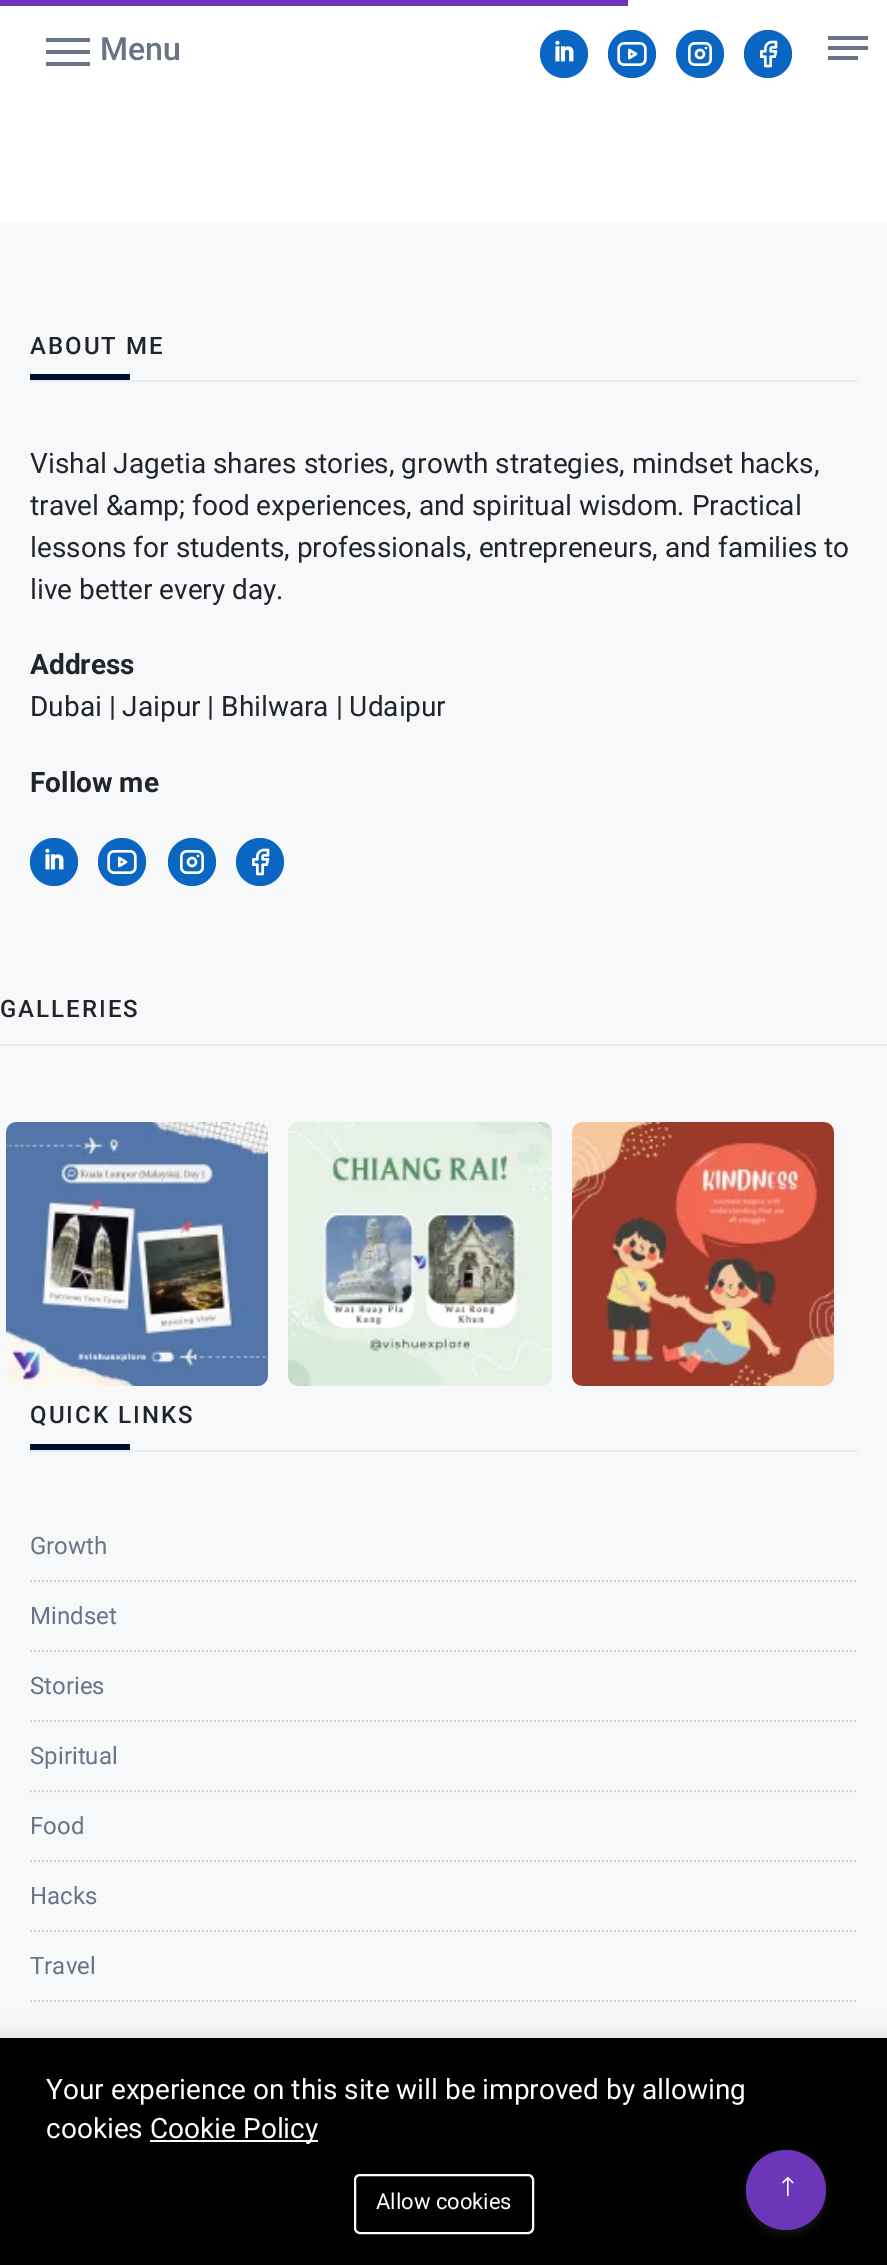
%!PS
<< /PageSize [887 2265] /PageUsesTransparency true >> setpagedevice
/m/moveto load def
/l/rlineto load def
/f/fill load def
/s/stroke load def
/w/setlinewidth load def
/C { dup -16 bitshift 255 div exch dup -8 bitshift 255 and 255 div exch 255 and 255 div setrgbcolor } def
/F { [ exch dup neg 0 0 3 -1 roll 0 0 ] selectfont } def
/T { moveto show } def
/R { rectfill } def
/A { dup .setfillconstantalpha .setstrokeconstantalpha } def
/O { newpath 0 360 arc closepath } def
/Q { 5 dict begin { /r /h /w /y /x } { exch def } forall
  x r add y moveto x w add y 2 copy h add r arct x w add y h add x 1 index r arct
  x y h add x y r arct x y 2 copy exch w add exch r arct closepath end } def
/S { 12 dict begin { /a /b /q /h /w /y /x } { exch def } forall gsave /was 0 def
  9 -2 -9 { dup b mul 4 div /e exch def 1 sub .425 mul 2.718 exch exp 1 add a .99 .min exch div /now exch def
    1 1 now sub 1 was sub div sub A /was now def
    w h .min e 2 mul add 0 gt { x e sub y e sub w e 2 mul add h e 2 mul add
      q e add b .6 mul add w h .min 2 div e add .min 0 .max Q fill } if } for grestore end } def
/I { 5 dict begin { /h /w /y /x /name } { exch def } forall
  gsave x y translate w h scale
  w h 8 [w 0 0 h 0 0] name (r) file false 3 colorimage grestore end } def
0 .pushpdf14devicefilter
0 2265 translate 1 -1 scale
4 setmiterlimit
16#FFFFFF C
0 0 887 2265 R
16#6D36B9 C
0 0 628 6 R
16#687385 C
46 50 44 4 R
46 38 44 4 R
46 62 44 4 R
/Roboto-Medium 32 F
(Menu) 100 60 T
16#0A66C2 C
564 54 24 O f
(1.rgb) 555 40 19 22 I
632 54 24 O f
(2.rgb) 617 42 30 24 I
700 54 24 O f
(3.rgb) 688 42 24 24 I
768 54 24 O f
(4.rgb) 760 40 18 28 I
16#687385 C
828 56 30 4 R
828 36 40 4 R
828 46 40 4 R
16#F7F8F9 C
0 222 887 1816 R
16#EAECEE C
30 380 828 2 R
/Roboto-Medium 24 F
16#212529 C
30 354 m 2 0 (ABOUT ME) ashow
16#000C2D C
30 374 100 6 R
/Roboto-Regular 28 F
16#212529 C
(Vishal Jagetia shares stories, growth strategies, mindset hacks,) 30 473 T
(travel &amp; food experiences, and spiritual wisdom. Practical) 30 515 T
(lessons for students, professionals, entrepreneurs, and families to) 30 557 T
(live better every day.) 30 599 T
/Roboto-Bold 28 F
(Address) 30 674 T
/Roboto-Regular 28 F
(Dubai | Jaipur | Bhilwara | Udaipur) 30 716 T
/Roboto-Bold 28 F
(Follow me) 30 792 T
16#0A66C2 C
54 862 24 O f
(1.rgb) 45 848 19 22 I
122 862 24 O f
(2.rgb) 107 850 30 24 I
192 862 24 O f
(3.rgb) 180 850 24 24 I
260 862 24 O f
(4.rgb) 252 848 18 28 I
16#EAECEE C
0 1044 887 2 R
/Roboto-Medium 24 F
16#212529 C
0 1017 m 2 0 (GALLERIES) ashow
(5.rgb) 6 1122 262 264 I
(6.rgb) 288 1122 264 264 I
(7.rgb) 572 1122 262 264 I
16#EAECEE C
30 1450 828 2 R
16#212529 C
30 1423 m 2 0 (QUICK LINKS) ashow
16#000C2D C
30 1444 100 6 R
16#D2D3D4 C
2 w
[2 2] 0 setdash
30 1581 m 828 0 l s
/Roboto-Regular 24 F
16#687385 C
(Growth) 30 1554 T
16#D2D3D4 C
30 1651 m 828 0 l s
16#687385 C
(Mindset) 30 1624 T
16#D2D3D4 C
30 1721 m 828 0 l s
16#687385 C
(Stories) 30 1694 T
16#D2D3D4 C
30 1791 m 828 0 l s
16#687385 C
(Spiritual) 30 1764 T
16#D2D3D4 C
30 1861 m 828 0 l s
16#687385 C
(Food) 30 1834 T
16#D2D3D4 C
30 1931 m 828 0 l s
16#687385 C
(Hacks) 30 1904 T
16#D2D3D4 C
30 2001 m 828 0 l s
16#687385 C
(Travel) 30 1974 T
16#000000 C
0 2034 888 228 0 10 .1 S
0 2038 887 227 R
/Roboto-Regular 28 F
16#FFFFFF C
(Your experience on this site will be improved by allowing) 46 2099 T
(cookies) 46 2138 T
150 2140 168 2 R
(Cookie Policy) 150 2138 T
[] 0 setdash
355 2175 178 58 5 Q s
/Roboto-Regular 22 F
(Allow cookies) 376 2209 T
16#6C6C6C C
746 2154 80 80 40 4 .2 S
16#6D36B9 C
786 2190 40 O f
(8.rgb) 782 2176 12 21 I
.poppdf14devicefilter showpage
